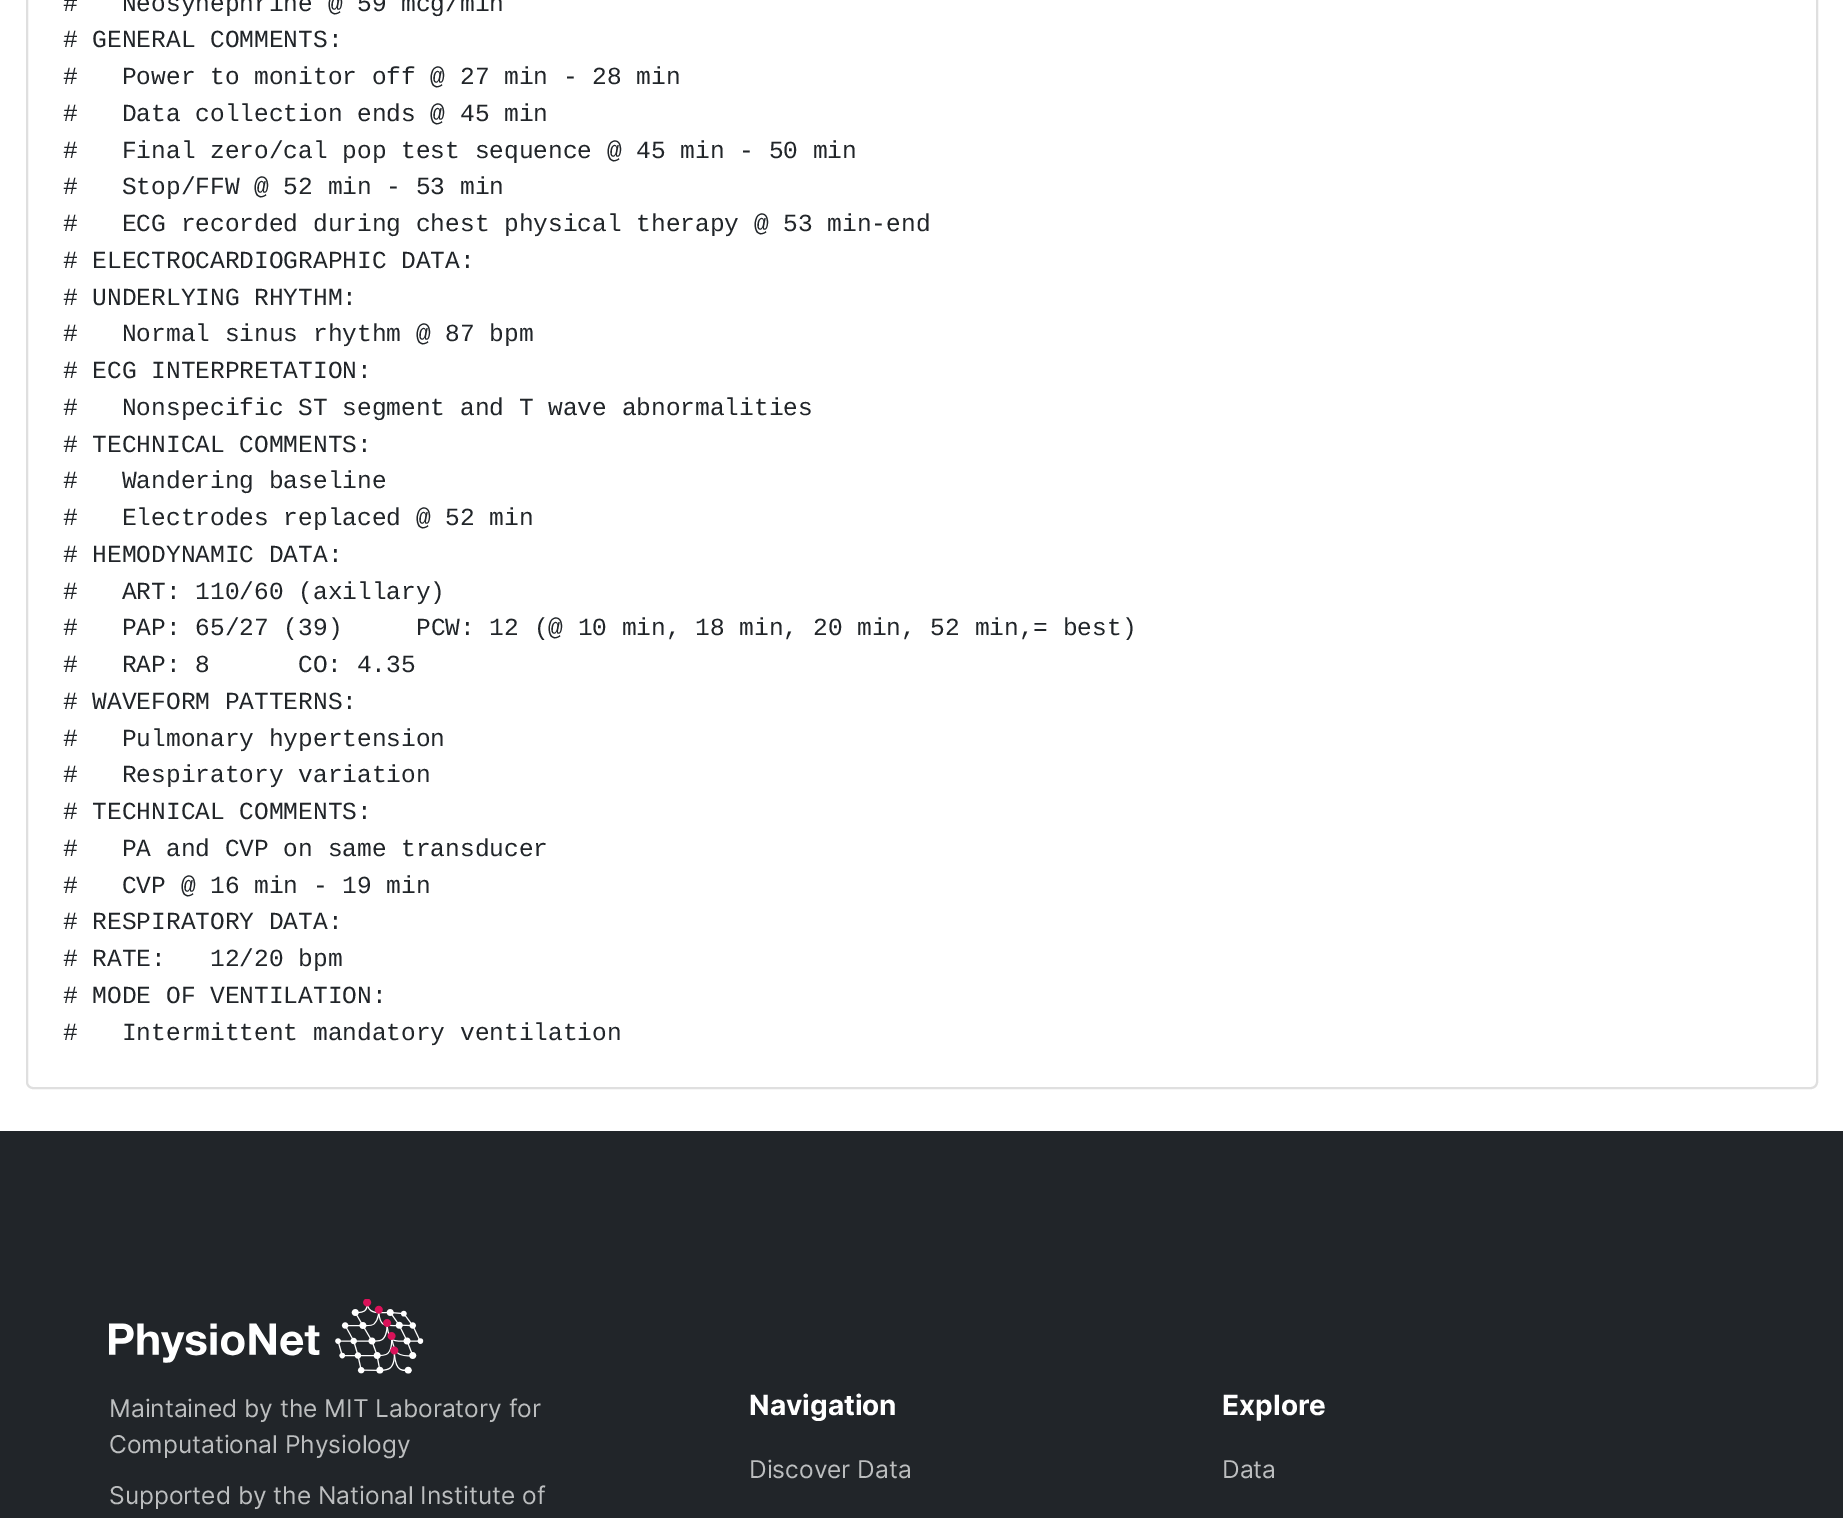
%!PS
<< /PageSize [1843 1518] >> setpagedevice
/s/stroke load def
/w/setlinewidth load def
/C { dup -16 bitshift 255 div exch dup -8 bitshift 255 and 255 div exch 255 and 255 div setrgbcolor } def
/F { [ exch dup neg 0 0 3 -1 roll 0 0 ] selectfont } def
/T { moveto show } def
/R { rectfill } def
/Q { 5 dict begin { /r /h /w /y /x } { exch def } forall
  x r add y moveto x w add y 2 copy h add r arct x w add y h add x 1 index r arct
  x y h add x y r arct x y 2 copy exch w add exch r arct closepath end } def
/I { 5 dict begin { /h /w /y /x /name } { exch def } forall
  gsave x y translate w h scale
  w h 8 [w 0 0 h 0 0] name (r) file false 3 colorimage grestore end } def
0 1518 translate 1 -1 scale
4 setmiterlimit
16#FFFFFF C
0 0 1843 1518 R
16#DFDFDF C
2 w
27 -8 1790 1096 6 Q s
/LiberationMono-Regular 24.5 F
16#212529 C
(#   Neosynephrine @ 59 mcg/min) 63 11 T
(# GENERAL COMMENTS:) 63 47 T
(#   Power to monitor off @ 27 min - 28 min) 63 84 T
(#   Data collection ends @ 45 min) 63 121 T
(#   Final zero/cal pop test sequence @ 45 min - 50 min) 63 158 T
(#   Stop/FFW @ 52 min - 53 min) 63 194 T
(#   ECG recorded during chest physical therapy @ 53 min-end) 63 231 T
(# ELECTROCARDIOGRAPHIC DATA:) 63 268 T
(# UNDERLYING RHYTHM:) 63 305 T
(#   Normal sinus rhythm @ 87 bpm) 63 341 T
(# ECG INTERPRETATION:) 63 378 T
(#   Nonspecific ST segment and T wave abnormalities) 63 415 T
(# TECHNICAL COMMENTS:) 63 452 T
(#   Wandering baseline) 63 488 T
(#   Electrodes replaced @ 52 min) 63 525 T
(# HEMODYNAMIC DATA:) 63 562 T
(#   ART: 110/60 \(axillary\)) 63 599 T
(#   PAP: 65/27 \(39\)) 63 635 T
(PCW: 12 \(@ 10 min, 18 min, 20 min, 52 min,= best\)) 416 635 T
(#   RAP: 8) 63 672 T
(CO: 4.35) 298 672 T
(# WAVEFORM PATTERNS:) 63 709 T
(#   Pulmonary hypertension) 63 746 T
(#   Respiratory variation) 63 782 T
(# TECHNICAL COMMENTS:) 63 819 T
(#   PA and CVP on same transducer) 63 856 T
(#   CVP @ 16 min - 19 min) 63 893 T
(# RESPIRATORY DATA:) 63 929 T
(# RATE:   12/20 bpm) 63 966 T
(# MODE OF VENTILATION:) 63 1003 T
(#   Intermittent mandatory ventilation) 63 1040 T
0 1131 1843 387 R
(1.rgb) 109 1299 315 75 I
/Inter-Regular 24.5 F
16#BCBEBF C
(Maintained by the MIT Laboratory for) 109 1417 T
(Computational Physiology) 109 1453 T
(Supported by the National Institute of) 109 1504 T
/Inter-Bold 28 F
16#FFFFFF C
(Navigation) 749 1415 T
/Inter-Regular 24.5 F
16#BCBEBF C
(Discover Data) 749 1478 T
/Inter-Bold 28 F
16#FFFFFF C
(Explore) 1222 1415 T
/Inter-Regular 24.5 F
16#BCBEBF C
(Data) 1222 1478 T
showpage
